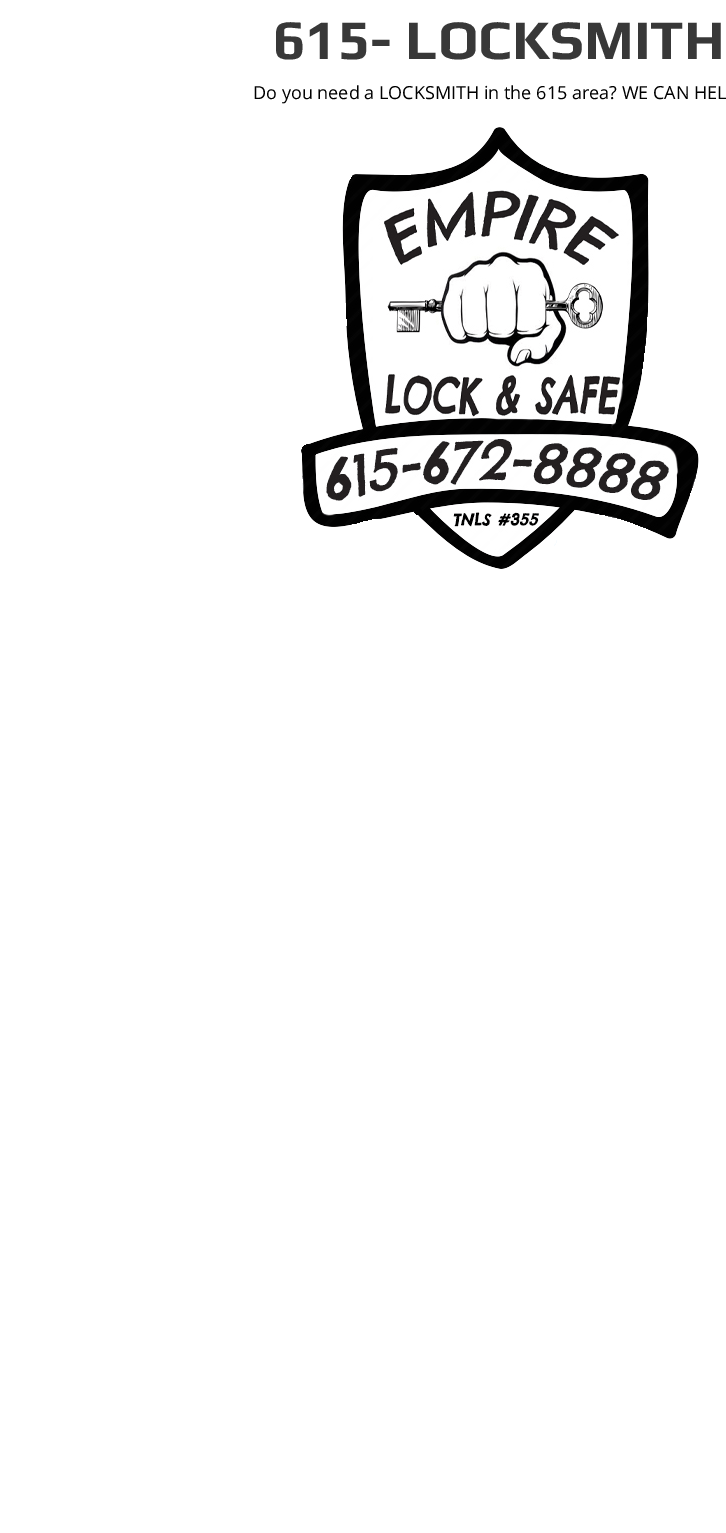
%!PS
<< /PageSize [726 1533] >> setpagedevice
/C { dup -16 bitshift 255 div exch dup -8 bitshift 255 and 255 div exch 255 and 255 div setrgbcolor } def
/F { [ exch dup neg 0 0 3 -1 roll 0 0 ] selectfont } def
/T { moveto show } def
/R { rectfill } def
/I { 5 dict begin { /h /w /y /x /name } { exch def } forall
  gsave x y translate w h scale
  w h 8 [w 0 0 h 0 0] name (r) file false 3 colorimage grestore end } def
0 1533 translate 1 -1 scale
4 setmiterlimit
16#FFFFFF C
0 0 726 1533 R
/Play-Bold 56 F
16#383838 C
(615- LOCKSMITH) 273 59 T
/OpenSans-Regular 18 F
16#000000 C
(Do you need a LOCKSMITH in the 615 area? WE CAN HEL) 253 99 T
(1.rgb) 301 127 398 442 I
showpage
